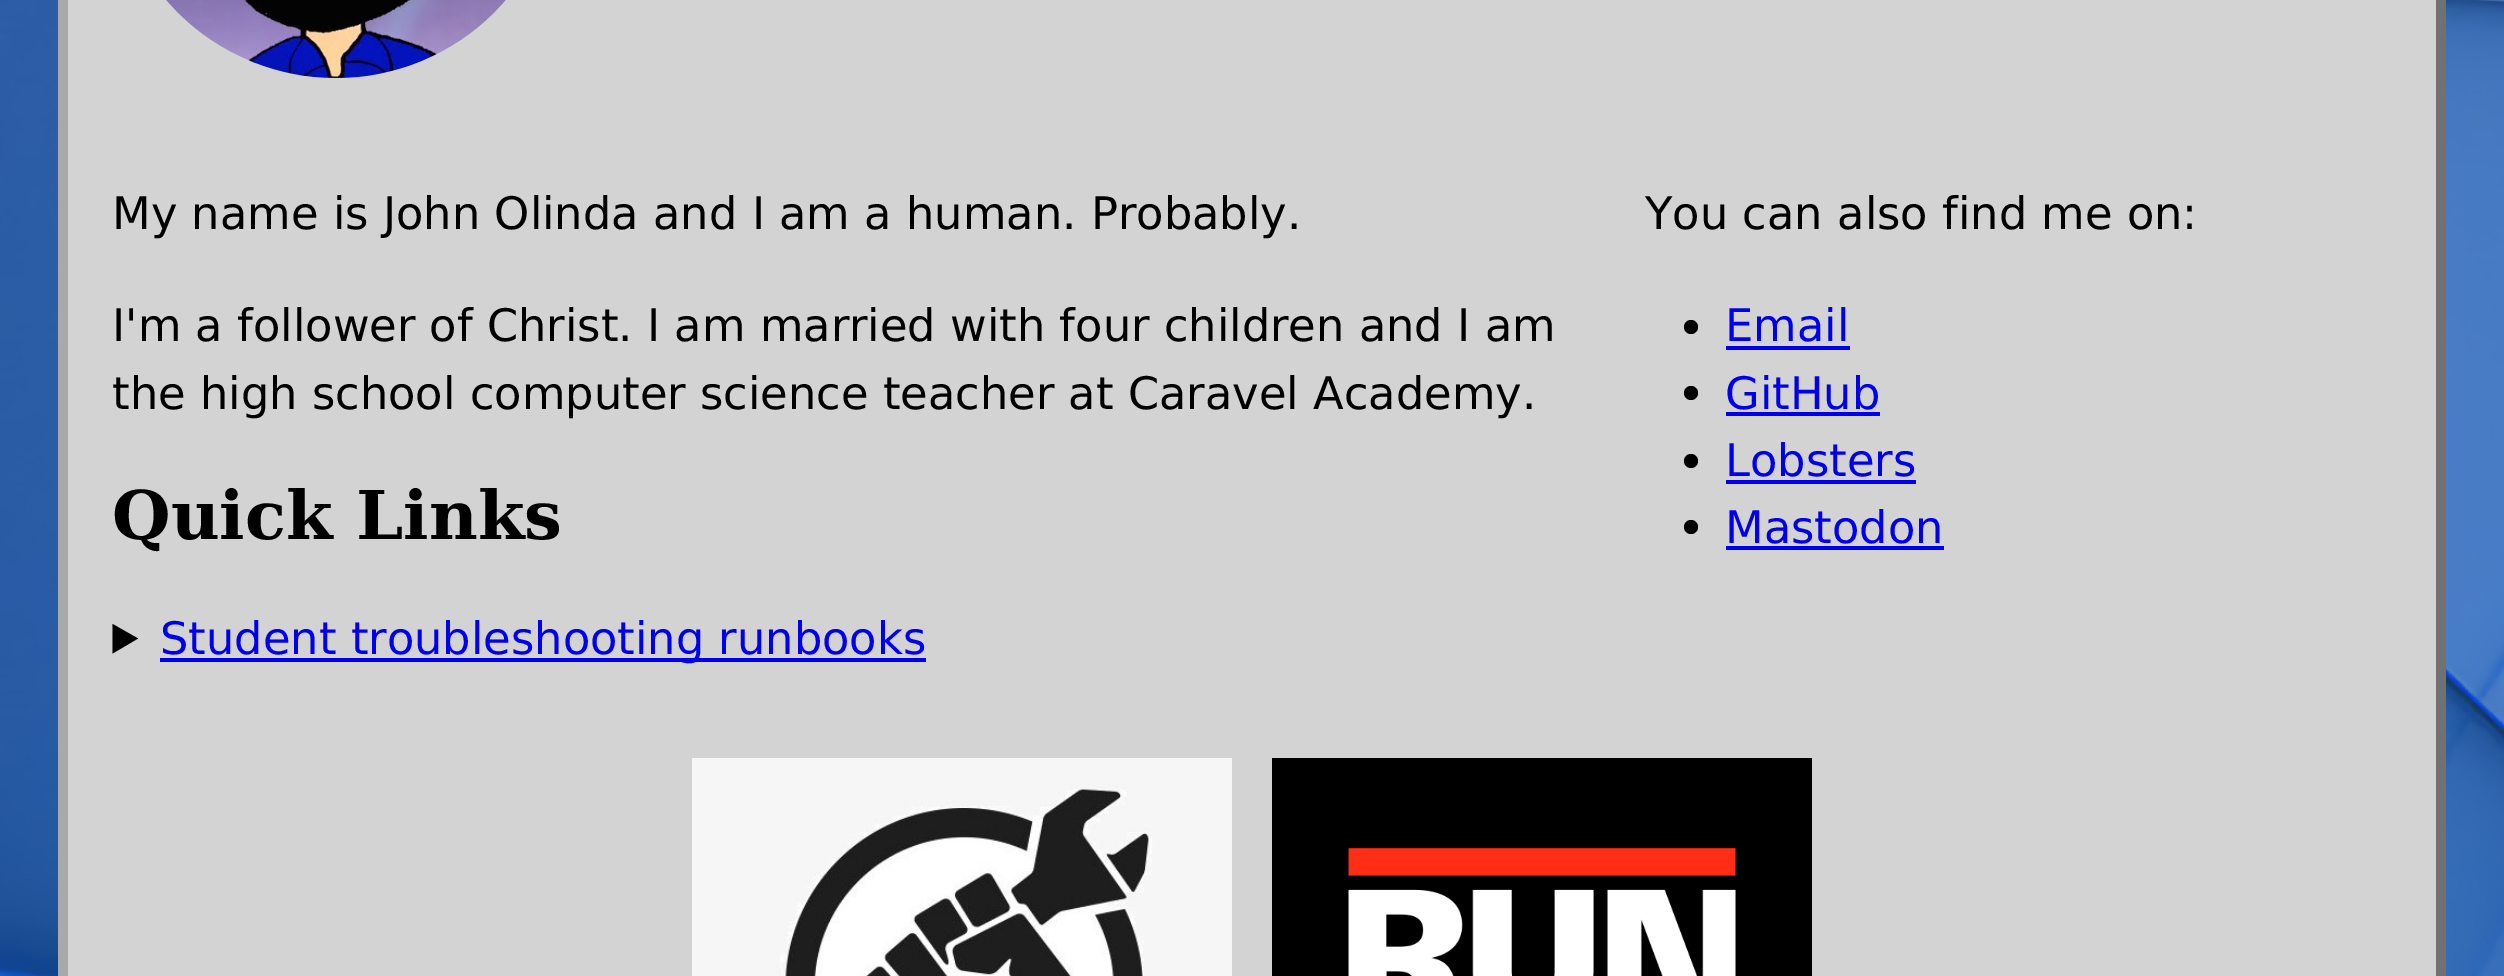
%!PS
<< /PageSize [2504 976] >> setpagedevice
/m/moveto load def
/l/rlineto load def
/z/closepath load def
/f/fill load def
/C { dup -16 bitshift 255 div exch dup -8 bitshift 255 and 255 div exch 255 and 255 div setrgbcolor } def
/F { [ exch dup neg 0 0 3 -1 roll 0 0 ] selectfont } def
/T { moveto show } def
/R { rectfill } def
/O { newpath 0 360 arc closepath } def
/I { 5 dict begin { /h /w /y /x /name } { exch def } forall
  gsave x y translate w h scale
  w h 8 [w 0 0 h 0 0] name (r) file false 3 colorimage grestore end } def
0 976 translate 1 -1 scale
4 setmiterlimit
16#FFFFFF C
0 0 2504 976 R
(1.rgb) 0 0 2504 976 I
16#D3D3D3 C
68 0 2368 976 R
16#717171 C
2446 -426 m 0 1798 l -10 -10 l 0 -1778 l z f
16#A9A9A9 C
58 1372 m 0 -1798 l 10 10 l 0 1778 l z f
(2.rgb) 166 0 340 78 I
/DejaVuSans-Regular 44.8 F
16#000000 C
(My name is John Olinda and I am a human. Probably.) 112 229 T
(I'm a follower of Christ. I am married with four children and I am) 112 341 T
(the high school computer science teacher at Caravel Academy.) 112 409 T
/DejaVuSerif-Bold 67.25 F
(Quick Links) 112 539 T
112.5 624 m 25.5 14.5 l -25.5 15 l z f
16#0000EE C
160 658 766 4 R
/DejaVuSans-Regular 44.8 F
(Student troubleshooting runbooks) 160 654 T
16#000000 C
(You can also find me on:) 1645 229 T
1691 327 7 O f
16#0000EE C
(Email) 1725 341 T
1726 346 124 4 R
16#000000 C
1691 393 7 O f
16#0000EE C
(GitHub) 1725 409 T
1726 412 154 4 R
16#000000 C
1691 461 7 O f
16#0000EE C
(Lobsters) 1725 476 T
1726 480 190 4 R
16#000000 C
1691 527 7 O f
16#0000EE C
(Mastodon) 1725 543 T
1726 546 218 4 R
(3.rgb) 692 758 540 218 I
(4.rgb) 1272 758 540 218 I
showpage
